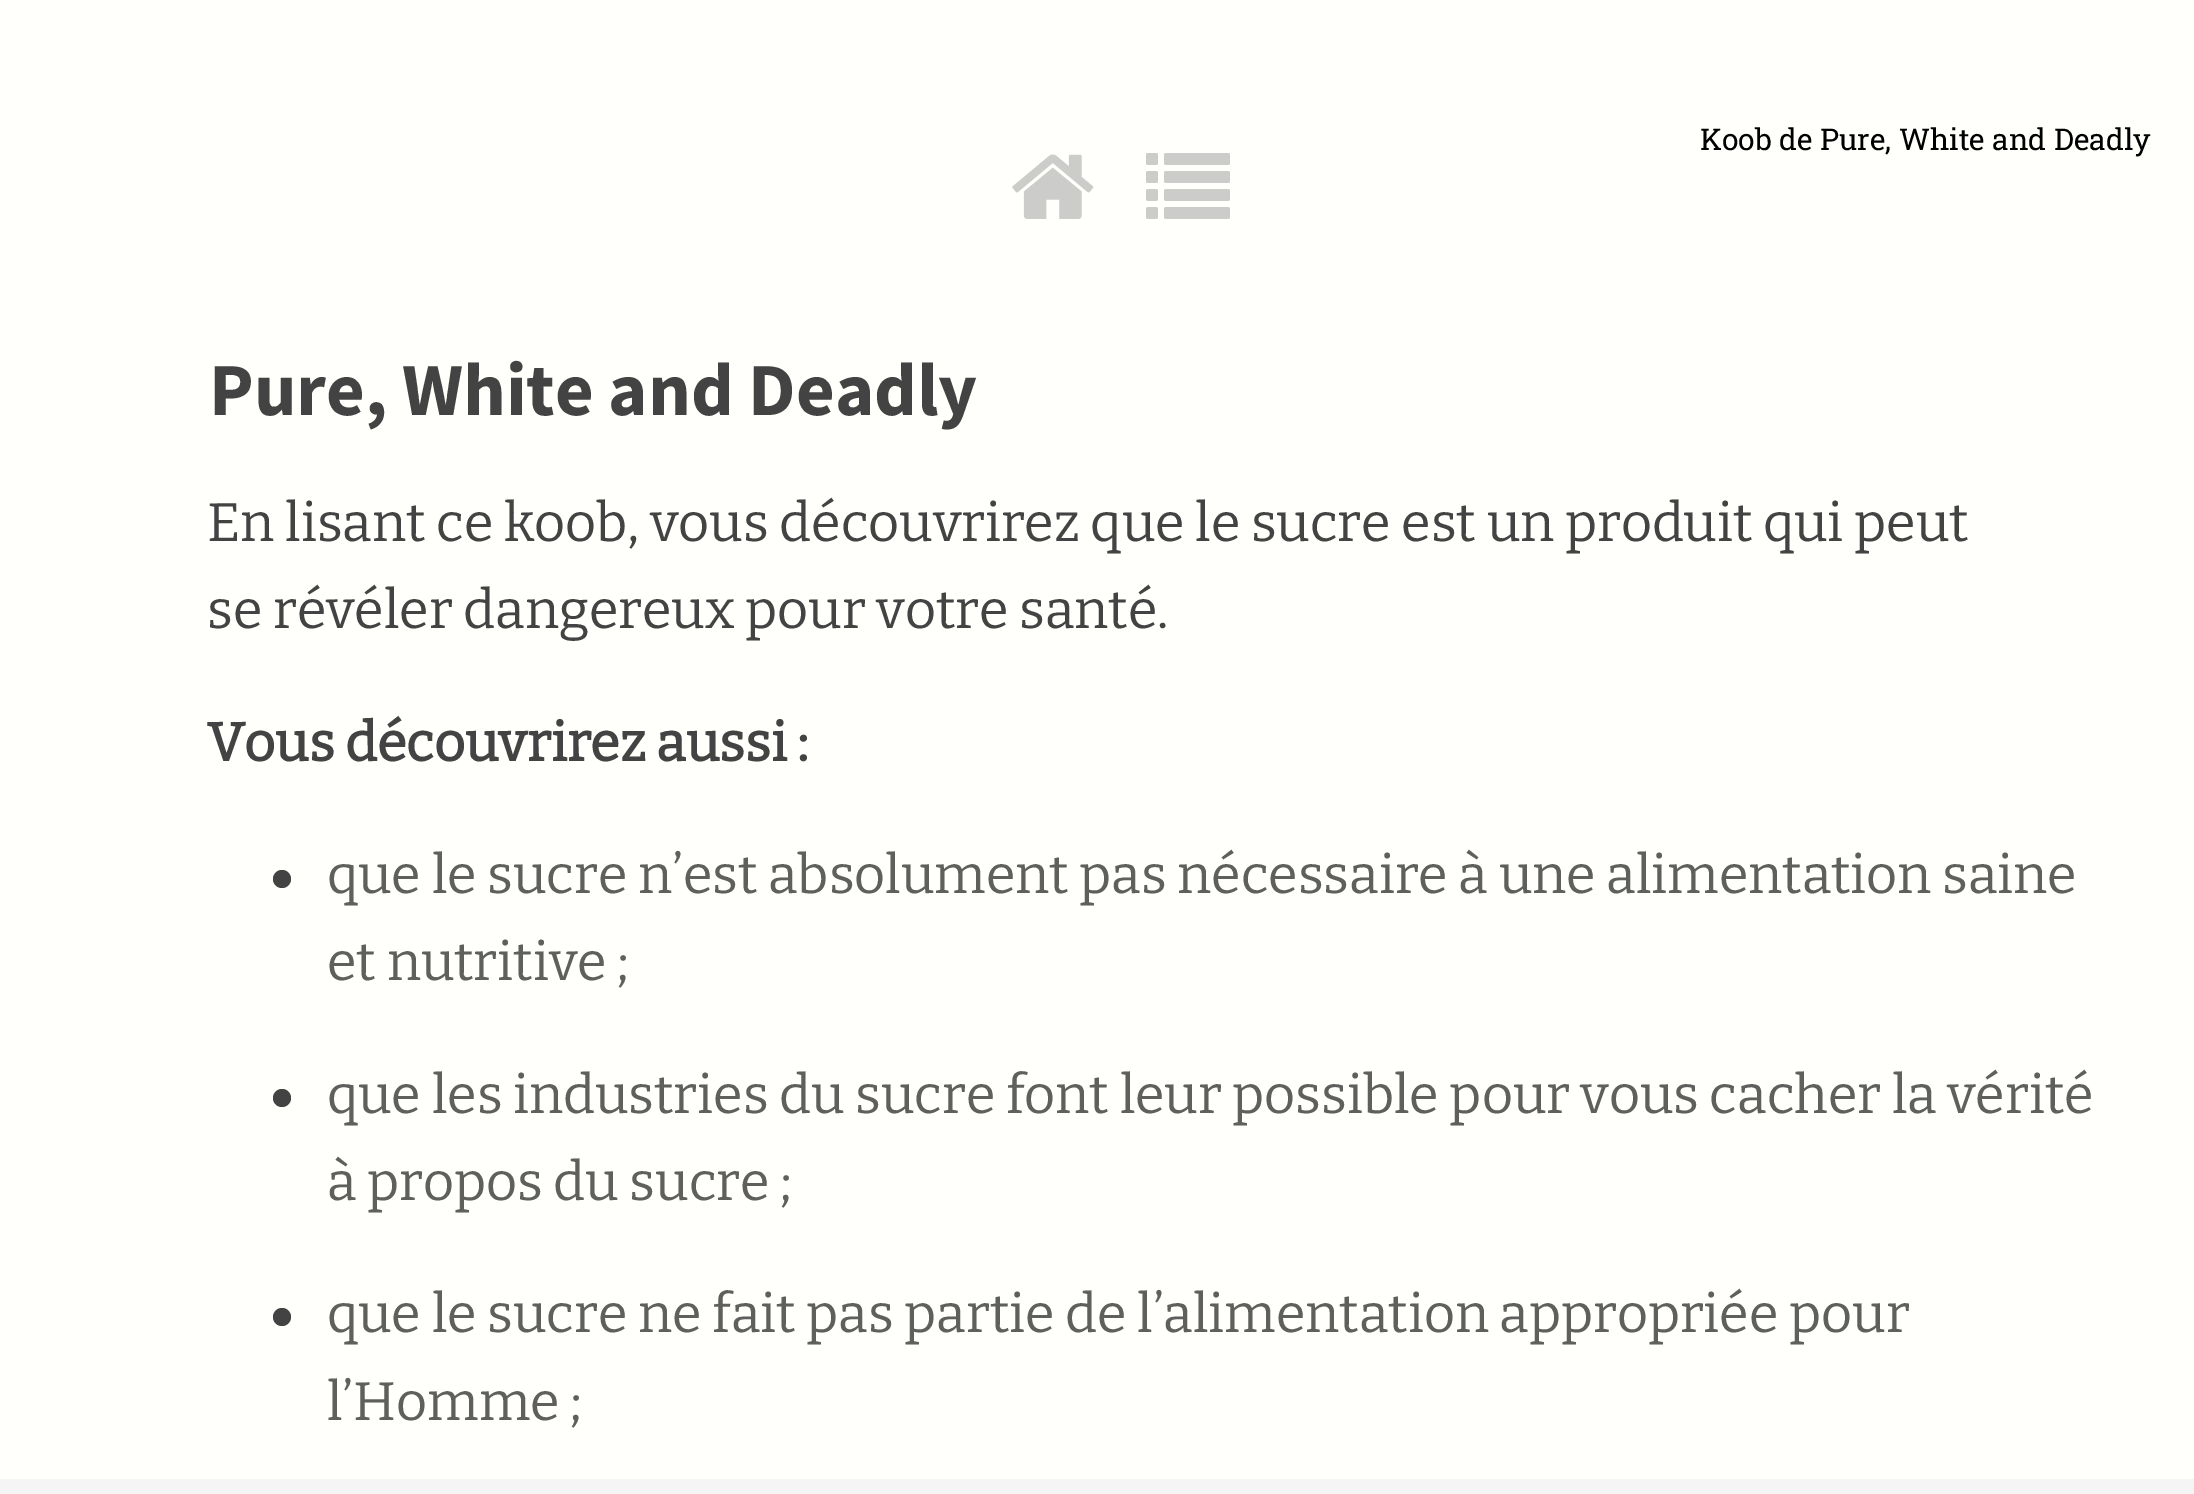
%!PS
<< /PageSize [2194 1494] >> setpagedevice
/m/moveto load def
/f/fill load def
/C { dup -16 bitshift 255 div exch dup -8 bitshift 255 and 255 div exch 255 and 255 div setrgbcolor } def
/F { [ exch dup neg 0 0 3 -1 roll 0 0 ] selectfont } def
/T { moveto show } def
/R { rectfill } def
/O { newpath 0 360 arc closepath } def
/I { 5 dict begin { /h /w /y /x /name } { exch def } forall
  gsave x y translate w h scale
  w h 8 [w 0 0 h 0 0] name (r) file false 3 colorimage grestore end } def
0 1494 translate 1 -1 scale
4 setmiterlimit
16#FFFFFC C
0 0 2194 1494 R
/RobotoSlab-Regular 30 F
16#000000 C
(Koob de Pure, White and Deadly) 1700 150 T
/SourceSansPro-Bold 75 F
16#434343 C
209 415 m -.1 0 (Pure, White and Deadly) ashow
/Bitter-Thin 54 F
207 541 m -.1 0 (En lisant ce koob, vous découvrirez que le sucre est un produit qui peut) ashow
207 628 m -.1 0 (se révéler dangereux pour votre santé.) ashow
/Bitter-Bold 54 F
207 761 m -.1 0 (Vous découvrirez aussi :) ashow
282 879 9 O f
/Bitter-Thin 54 F
16#5F5F5E C
327 893 m -.1 0 (que le sucre n’est absolument pas nécessaire à une alimentation saine) ashow
327 980 m -.1 0 (et nutritive ;) ashow
16#434343 C
282 1098 9 O f
16#5F5F5E C
327 1113 m -.1 0 (que les industries du sucre font leur possible pour vous cacher la vérité) ashow
327 1200 m -.1 0 (à propos du sucre ;) ashow
16#434343 C
282 1317 9 O f
16#5F5F5E C
327 1332 m -.1 0 (que le sucre ne fait pas partie de l’alimentation appropriée pour) ashow
327 1420 m -.1 0 (l’Homme ;) ashow
(1.rgb) 1012 154 82 65 I
(2.rgb) 1146 153 84 66 I
16#F5F5F5 C
0 1479 2194 15 R
showpage
